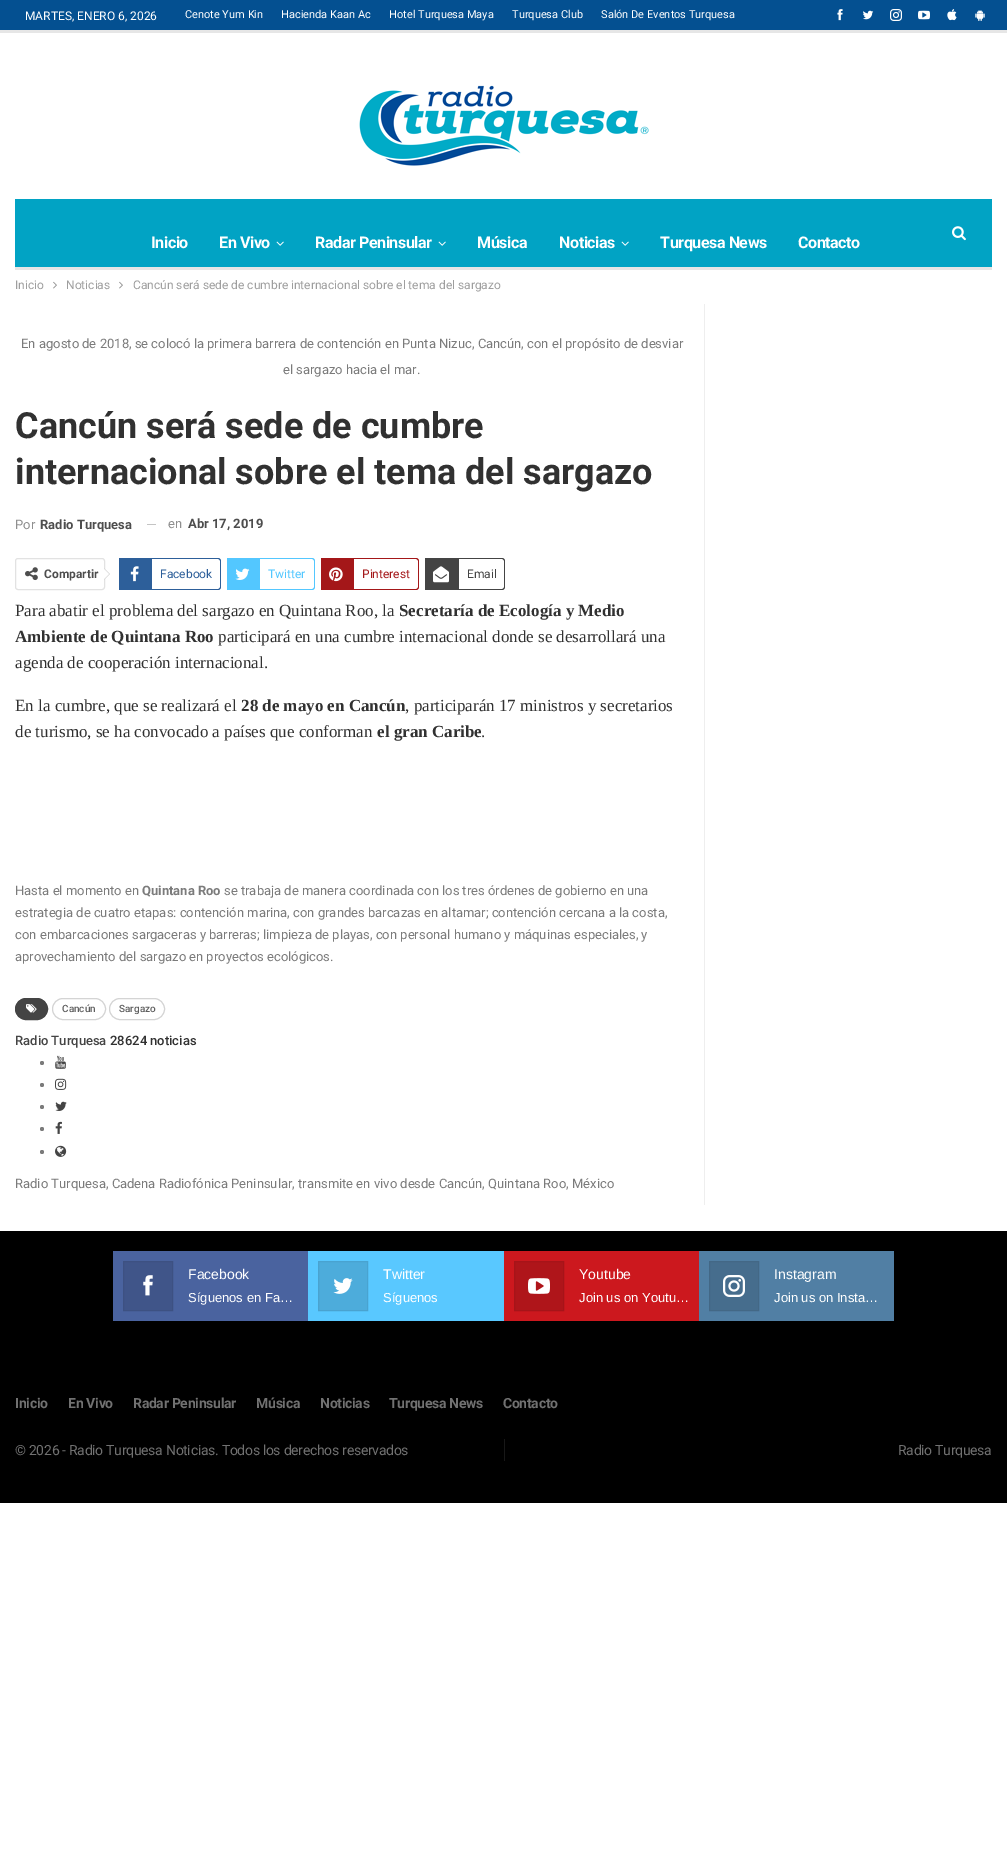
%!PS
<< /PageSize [1007 1876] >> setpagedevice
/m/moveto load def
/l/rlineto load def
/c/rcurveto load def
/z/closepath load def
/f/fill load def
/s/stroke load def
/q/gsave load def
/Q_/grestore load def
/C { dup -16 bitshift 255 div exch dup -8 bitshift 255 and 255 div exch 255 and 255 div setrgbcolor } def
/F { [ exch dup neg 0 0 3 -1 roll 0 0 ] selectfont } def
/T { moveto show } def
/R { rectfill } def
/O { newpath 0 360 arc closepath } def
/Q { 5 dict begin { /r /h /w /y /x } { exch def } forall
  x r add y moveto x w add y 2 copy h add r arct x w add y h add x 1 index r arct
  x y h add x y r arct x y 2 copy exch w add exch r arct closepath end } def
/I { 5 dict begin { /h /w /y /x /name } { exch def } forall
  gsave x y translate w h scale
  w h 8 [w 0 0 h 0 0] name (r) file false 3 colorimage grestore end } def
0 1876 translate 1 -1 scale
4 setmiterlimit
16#FFFFFF C
0 0 1007 1876 R
16#E6E6E6 C
0 30 1007 3 R
16#045091 C
0 0 1007 30 R
/Roboto-Regular 12 F
16#FFFFFF C
(MARTES, ENERO 6, 2026) 25 20 T
/Roboto-Regular 11 F
(Cenote Yum Kin) 185 18 T
(Hacienda Kaan Ac) 281 18 T
(Hotel Turquesa Maya) 389 18 T
(Turquesa Club) 512 18 T
(Salón De Eventos Turquesa) 601 18 T
(1.rgb) 837 9 6 12 I
(2.rgb) 863 10 11 10 I
(3.rgb) 890 9 12 12 I
(4.rgb) 918 10 12 10 I
(5.rgb) 947 9 10 12 I
(6.rgb) 975 10 10 11 I
(7.rgb) 359 85 290 81 I
16#E6E6E6 C
15 267 977 3 R
16#01A3C4 C
15 199 977 68 R
(8.rgb) 952 226 14 15 I
/Roboto-Bold 16 F
16#FFFFFF C
151 248 m -.4 0 (Inicio) ashow
219 248 m -.4 0 (En Vivo) ashow
(9.rgb) 276 241 8 5 I
315 248 m -.4 0 (Radar Peninsular) ashow
(9.rgb) 438 241 8 5 I
477 248 m -.4 0 (Música) ashow
559 248 m -.4 0 (Noticias) ashow
(9.rgb) 621 241 8 5 I
660 248 m -.4 0 (Turquesa News) ashow
798 248 m -.4 0 (Contacto) ashow
/Roboto-Regular 12 F
16#9E9E9E C
(Inicio) 15 289 T
(10.rgb) 53 281 4 8 I
(Noticias) 66 289 T
(10.rgb) 119 281 4 8 I
(Cancún será sede de cumbre internacional sobre el tema del sargazo) 133 289 T
16#EEEEEE C
704 304 1 901 R
/Roboto-Regular 13 F
16#7B7B7B C
(En agosto de 2018, se colocó la primera barrera de contención en Punta Nizuc, Cancún, con el propósito de desviar) 21 348 T
(el sargazo hacia el mar.) 283 374 T
/Roboto-Bold 36 F
16#313131 C
(Cancún será sede de cumbre) 15 438 T
(internacional sobre el tema del sargazo) 15 484 T
/Roboto-Regular 13 F
16#8F8F8F C
(Por) 15 529 T
/Roboto-Bold 13 F
16#4D4D4D C
(Radio Turquesa) 40 529 T
16#C4C4C4 C
147 524 9 1 R
/Roboto-Regular 13 F
16#8F8F8F C
(en) 168 528 T
/Roboto-Bold 13 F
16#4D4D4D C
(Abr 17, 2019) 188 528 T
16#E2E2E2 C
15.5 558.5 89 31 2.5 Q s
(11.rgb) 25 567 13 14 I
/Roboto-Bold 12 F
16#4D4D4D C
(Compartir) 44 578 T
16#D7D7D7 C
104 580 m 0 -12 l 6 6 l z f
16#FFFFFF C
104 579 m 0 -10 l 5 5 l z f
16#2D5F9A C
119 558 102 32 3 Q f
q
119 558 102 32 3 Q clip newpath
119 559 31 30 R
119 558 32 1 R
119 589 32 1 R
Q_
(12.rgb) 130 566 9 16 I
16#FFFFFF C
152 559 m 65 0 l 1.5 0 3 1.5 3 3 c 0 24 l 0 1.5 -1.5 3 -3 3 c -65 0 l z f
/Roboto-Regular 12 F
16#2D5F9A C
(Facebook) 160 578 T
16#53C7FF C
227 558 88 32 3 Q f
q
227 558 88 32 3 Q clip newpath
227 559 31 30 R
227 558 32 1 R
227 589 32 1 R
Q_
(13.rgb) 235 568 15 12 I
16#FFFFFF C
260 559 m 51 0 l 1.5 0 3 1.5 3 3 c 0 24 l 0 1.5 -1.5 3 -3 3 c -51 0 l z f
16#53C7FF C
(Twitter) 268 578 T
16#A41719 C
321 558 98 32 3 Q f
q
321 558 98 32 3 Q clip newpath
321 559 31 30 R
321 558 32 1 R
321 589 32 1 R
Q_
(14.rgb) 329 567 14 15 I
16#FFFFFF C
354 559 m 61 0 l 1.5 0 3 1.5 3 3 c 0 24 l 0 1.5 -1.5 3 -3 3 c -61 0 l z f
16#A41719 C
(Pinterest) 362 578 T
16#444444 C
425 558 80 32 3 Q f
q
425 558 80 32 3 Q clip newpath
425 559 32 30 R
425 558 33 1 R
425 589 33 1 R
Q_
(15.rgb) 433 566 16 17 I
16#FFFFFF C
459 559 m 42 0 l 1.5 0 3 1.5 3 3 c 0 24 l 0 1.5 -1.5 3 -3 3 c -42 0 l z f
16#444444 C
(Email) 467 578 T
/LiberationSerif-Regular 17 F
16#313131 C
(Para abatir el problema del sargazo en Quintana Roo, la) 15 616 T
/LiberationSerif-Bold 17 F
(Secretaría de Ecología y Medio) 399 616 T
(Ambiente de Quintana Roo) 15 642 T
/LiberationSerif-Regular 17 F
(participará en una cumbre internacional donde se desarrollará una) 218 642 T
(agenda de cooperación internacional.) 15 668 T
(En la cumbre, que se realizará el) 15 711 T
/LiberationSerif-Bold 17 F
(28 de mayo en Cancún) 241 711 T
/LiberationSerif-Regular 17 F
(, participarán 17 ministros y secretarios) 405 711 T
(de turismo, se ha convocado a países que conforman) 15 737 T
/LiberationSerif-Bold 17 F
(el gran Caribe) 377 737 T
/LiberationSerif-Regular 17 F
(.) 481 737 T
/Roboto-Regular 13 F
16#7B7B7B C
(Hasta el momento en) 15 895 T
/Roboto-Bold 13 F
(Quintana Roo) 142 895 T
/Roboto-Regular 13 F
(se trabaja de manera coordinada con los tres órdenes de gobierno en una) 224 895 T
(estrategia de cuatro etapas: contención marina, con grandes barcazas en altamar; contención cercana a la costa,) 15 917 T
(con embarcaciones sargaceras y barreras; limpieza de playas, con personal humano y máquinas especiales, y) 15 939 T
(aprovechamiento del sargazo en proyectos ecológicos.) 15 961 T
16#444444 C
15.5 998.5 32 21 10.5 Q q f Q_
s
(16.rgb) 26 1004 11 9 I
16#D4D4D4 C
52.5 998.5 53 21 10.5 Q s
/Roboto-Medium 10 F
16#5F5F5F C
(Cancún) 62 1012 T
16#D4D4D4 C
109.5 998.5 55 21 10.5 Q s
16#5F5F5F C
(Sargazo) 119 1012 T
/Roboto-Medium 13 F
16#444444 C
(Radio Turquesa) 15 1045 T
16#313131 C
(28624 noticias) 110 1045 T
16#7B7B7B C
42 1063 2 O f
(17.rgb) 55 1055 11 14 I
42 1085 2 O f
(18.rgb) 55 1078 12 12 I
42 1107 2 O f
(19.rgb) 55 1101 12 10 I
42 1129 2 O f
(20.rgb) 55 1121 7 13 I
42 1152 2 O f
(21.rgb) 55 1145 12 12 I
/Roboto-Regular 13 F
(Radio Turquesa, Cadena Radiofónica Peninsular, transmite en vivo desde Cancún, Quintana Roo, México) 15 1188 T
16#000000 C
0 1231 1007 272 R
16#4A639F C
113 1251 195 70 R
16#405589 C
123.5 1261.5 m 49 0 l 0 49 l -49 0 l z q f Q_
16#3D5182 C
s
(22.rgb) 143 1275 10 21 I
/LiberationSans-Regular 14 F
16#FFFFFF C
(Facebook) 188 1279 T
/LiberationSans-Regular 13 F
(Síguenos en Fa…) 188 1302 T
16#59C8FF C
308 1251 196 70 R
16#4DACDB C
318.5 1261.5 m 49 0 l 0 49 l -49 0 l z q f Q_
16#49A3D0 C
s
(23.rgb) 333 1278 20 16 I
/LiberationSans-Regular 14 F
16#FFFFFF C
(Twitter) 383 1279 T
/LiberationSans-Regular 13 F
(Síguenos) 383 1302 T
16#CC181E C
504 1251 195 70 R
16#AF151A C
514.5 1261.5 m 49 0 l 0 49 l -49 0 l z q f Q_
16#A61419 C
s
(24.rgb) 528 1278 22 16 I
/LiberationSans-Regular 14 F
16#FFFFFF C
(Youtube) 579 1279 T
/LiberationSans-Regular 13 F
(Join us on Youtu…) 579 1302 T
16#517FA4 C
699 1251 195 70 R
16#466D8D C
709.5 1261.5 m 49 0 l 0 49 l -49 0 l z q f Q_
16#436886 C
s
(25.rgb) 723 1275 22 22 I
/LiberationSans-Regular 14 F
16#FFFFFF C
(Instagram) 774 1279 T
/LiberationSans-Regular 13 F
(Join us on Insta…) 774 1302 T
/Roboto-Bold 14 F
16#717171 C
15 1408 m -.3 0 (Inicio) ashow
68 1408 m -.3 0 (En Vivo) ashow
133 1408 m -.3 0 (Radar Peninsular) ashow
256 1408 m -.3 0 (Música) ashow
320 1408 m -.3 0 (Noticias) ashow
389 1408 m -.3 0 (Turquesa News) ashow
503 1408 m -.3 0 (Contacto) ashow
/Roboto-Regular 14 F
15 1455 m -.3 0 (© 2026 - Radio Turquesa Noticias. Todos los derechos reservados) ashow
16#181818 C
504 1439 1 22 R
16#717171 C
898 1455 m -.3 0 (Radio Turquesa) ashow
showpage
